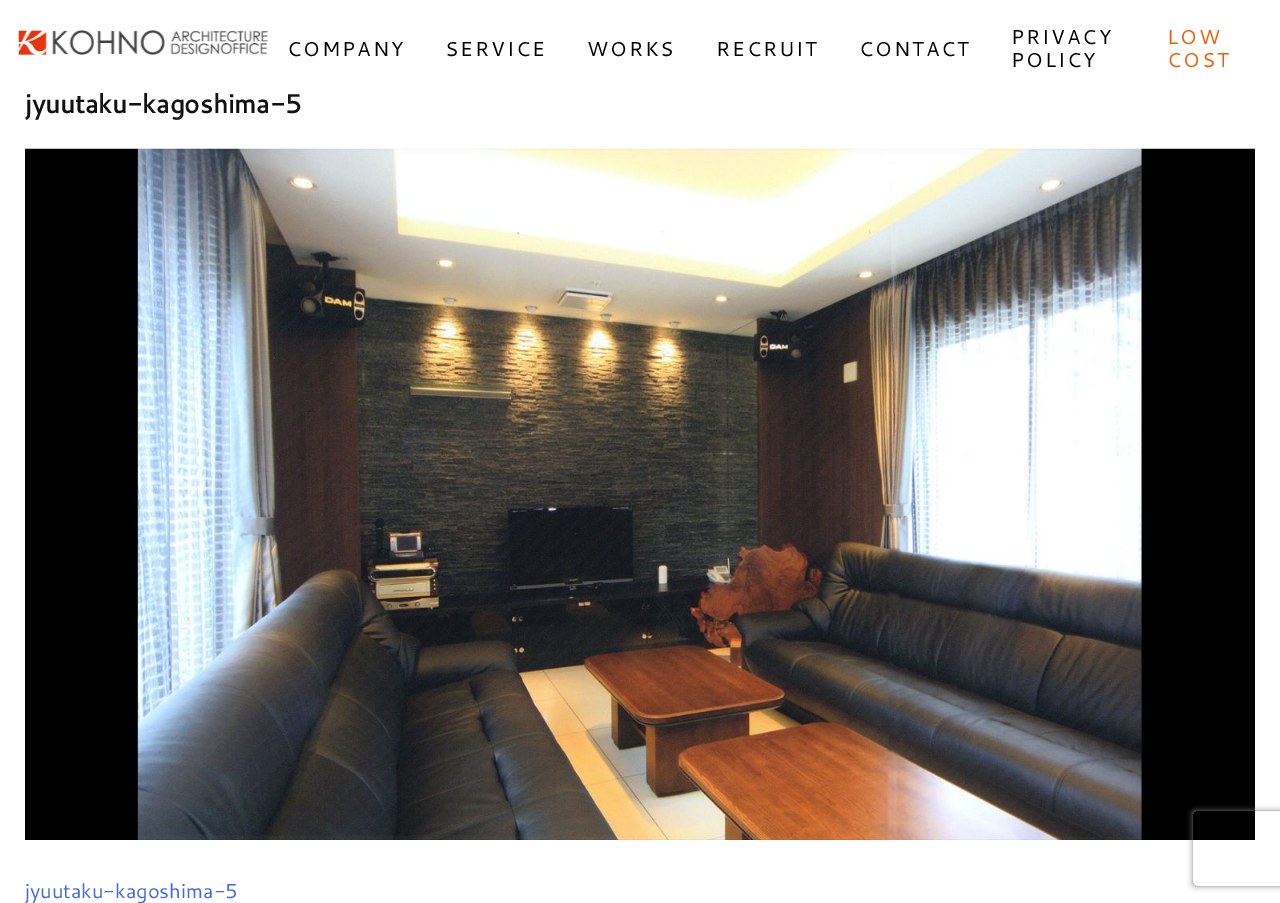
%!PS
<< /PageSize [1280 903] /PageUsesTransparency true >> setpagedevice
/m/moveto load def
/l/rlineto load def
/c/rcurveto load def
/z/closepath load def
/q/gsave load def
/Q_/grestore load def
/C { dup -16 bitshift 255 div exch dup -8 bitshift 255 and 255 div exch 255 and 255 div setrgbcolor } def
/F { [ exch dup neg 0 0 3 -1 roll 0 0 ] selectfont } def
/T { moveto show } def
/R { rectfill } def
/A { dup .setfillconstantalpha .setstrokeconstantalpha } def
/Q { 5 dict begin { /r /h /w /y /x } { exch def } forall
  x r add y moveto x w add y 2 copy h add r arct x w add y h add x 1 index r arct
  x y h add x y r arct x y 2 copy exch w add exch r arct closepath end } def
/S { 12 dict begin { /a /b /q /h /w /y /x } { exch def } forall gsave /was 0 def
  9 -2 -9 { dup b mul 4 div /e exch def 1 sub .425 mul 2.718 exch exp 1 add a .99 .min exch div /now exch def
    1 1 now sub 1 was sub div sub A /was now def
    w h .min e 2 mul add 0 gt { x e sub y e sub w e 2 mul add h e 2 mul add
      q e add b .6 mul add w h .min 2 div e add .min 0 .max Q fill } if } for grestore end } def
/I { 5 dict begin { /h /w /y /x /name } { exch def } forall
  gsave x y translate w h scale
  w h 8 [w 0 0 h 0 0] name (r) file false 3 colorimage grestore end } def
0 .pushpdf14devicefilter
0 903 translate 1 -1 scale
4 setmiterlimit
16#FFFFFF C
0 0 1280 903 R
(1.rgb) 18 30 250 25 I
/Cantarell-Regular 20 F
16#000000 C
287 56 m 2 0 (COMPANY) ashow
445 56 m 2 0 (SERVICE) ashow
587 56 m 2 0 (WORKS) ashow
716 56 m 2 0 (RECRUIT) ashow
859 56 m 2 0 (CONTACT) ashow
1011 44 m 2 0 (PRIVACY) ashow
1011 67 m 2 0 (POLICY) ashow
16#F05E0B C
1167 44 m 2 0 (LOW) ashow
1167 67 m 2 0 (COST) ashow
/Cantarell-Bold 26 F
16#111111 C
(jyuutaku-kagoshima-5) 25 113 T
(2.rgb) 25 148 1230 692 I
/Cantarell-Regular 20 F
16#4169E1 C
(jyuutaku-kagoshima-5) 25 898 T
q
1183 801 m 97 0 l 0 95 l -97 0 l z 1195.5 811 m 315 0 l 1.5 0 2.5 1 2.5 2.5 c 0 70 l 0 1.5 -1 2.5 -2.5 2.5 c -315 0 l -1.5 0 -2.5 -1 -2.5 -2.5 c 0 -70 l 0 -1.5 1 -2.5 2.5 -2.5 c z eoclip newpath
16#808080 C
1193 811 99 75 2.5 3 1 S
Q_
.poppdf14devicefilter showpage
